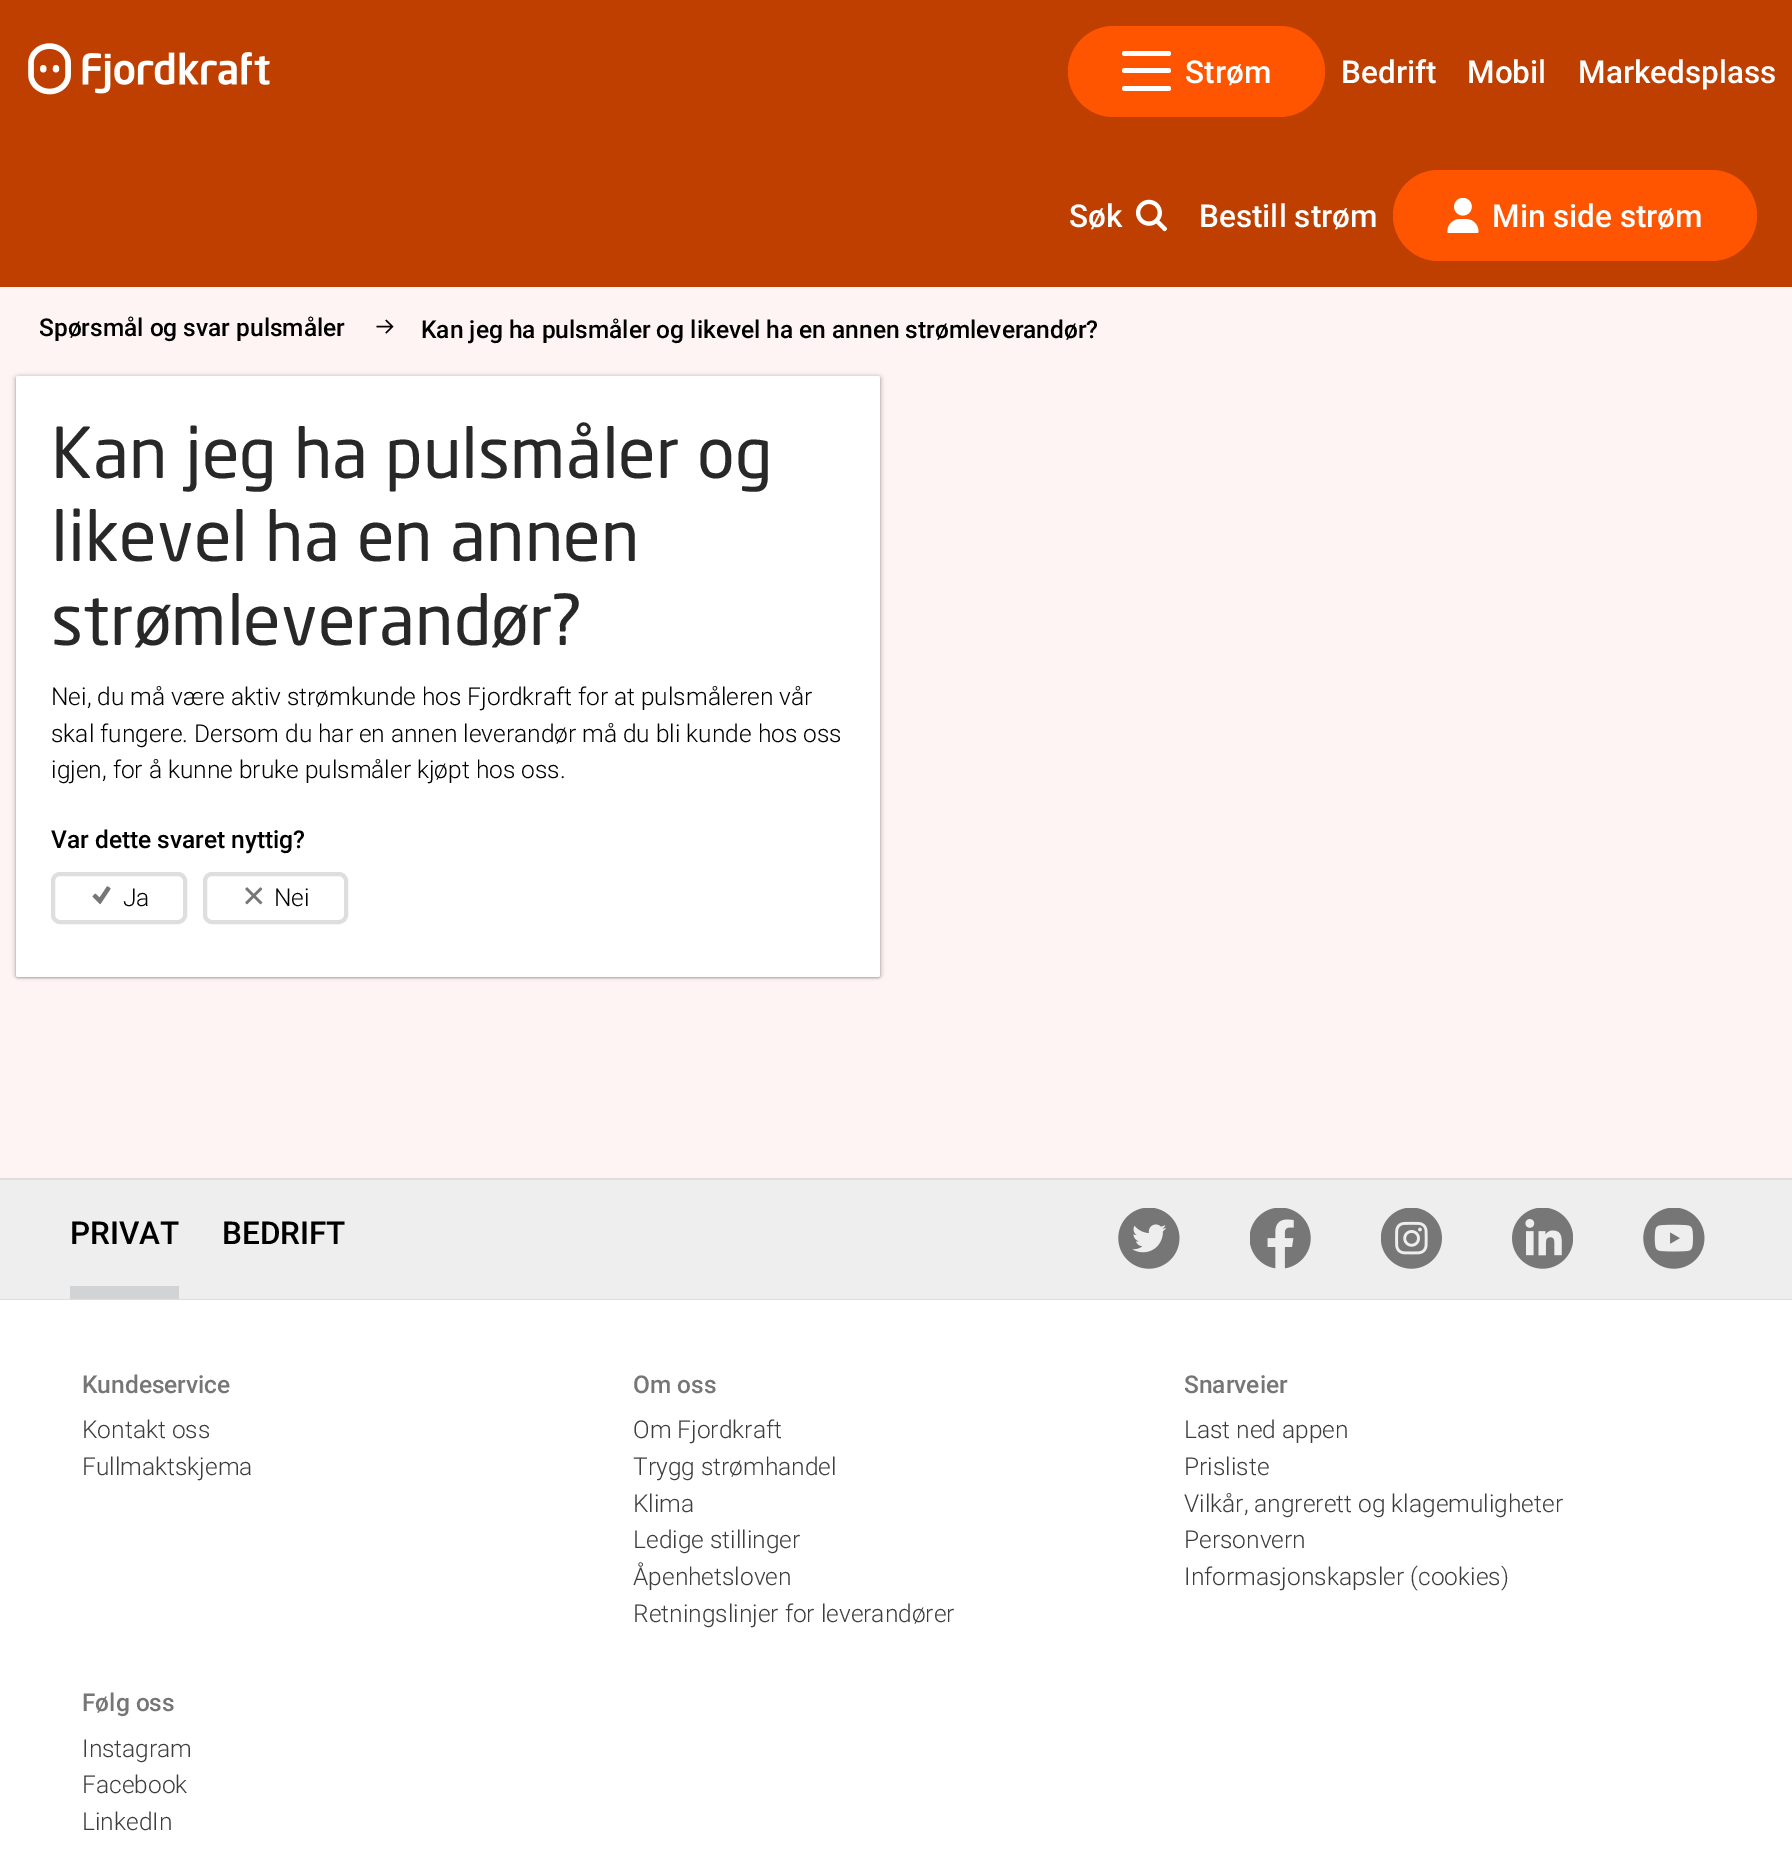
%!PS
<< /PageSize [1792 1854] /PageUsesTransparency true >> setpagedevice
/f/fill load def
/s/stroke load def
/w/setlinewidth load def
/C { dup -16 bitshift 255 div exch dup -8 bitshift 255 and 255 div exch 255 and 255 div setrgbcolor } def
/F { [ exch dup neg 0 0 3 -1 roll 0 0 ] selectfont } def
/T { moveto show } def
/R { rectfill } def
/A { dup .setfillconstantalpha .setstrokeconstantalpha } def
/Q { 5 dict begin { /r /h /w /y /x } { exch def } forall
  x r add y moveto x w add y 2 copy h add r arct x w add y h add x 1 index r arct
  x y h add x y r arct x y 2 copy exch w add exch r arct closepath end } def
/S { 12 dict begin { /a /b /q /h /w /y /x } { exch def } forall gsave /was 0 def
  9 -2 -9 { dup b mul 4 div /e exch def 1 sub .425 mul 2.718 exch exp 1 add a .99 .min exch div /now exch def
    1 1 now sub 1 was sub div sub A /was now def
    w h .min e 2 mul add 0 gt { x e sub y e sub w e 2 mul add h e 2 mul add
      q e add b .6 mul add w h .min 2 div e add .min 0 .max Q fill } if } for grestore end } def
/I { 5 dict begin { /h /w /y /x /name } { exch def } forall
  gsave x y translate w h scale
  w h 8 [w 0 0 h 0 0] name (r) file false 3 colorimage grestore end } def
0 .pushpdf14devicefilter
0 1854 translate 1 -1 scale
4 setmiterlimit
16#FFF4F4 C
0 0 1792 1854 R
16#BE3F00 C
0 0 1792 287 R
(1.rgb) 28 43 242 52 I
16#FF5500 C
1068 26 257 91 45.5 Q f
16#FFFFFF C
1122 51 49 5 2.5 Q f
1122 68 49 5 2.5 Q f
1122 86 49 5 2.5 Q f
/Roboto-Medium 31.5 F
(Strøm) 1185 83 T
(Bedrift) 1341 83 T
(Mobil) 1467 83 T
(Markedsplass) 1578 83 T
(Søk) 1069 227 T
(2.rgb) 1135 199 33 33 I
(Bestill strøm) 1199 227 T
16#FF5500 C
1393 170 364 91 45.5 Q f
(3.rgb) 1447 198 32 35 I
16#FFFFFF C
(Min side strøm) 1492 227 T
/Roboto-Medium 24.5 F
16#000000 C
(Spørsmål og svar pulsmåler) 39 336 T
(4.rgb) 376 319 18 15 I
(Kan jeg ha pulsmåler og likevel ha en annen strømleverandør?) 421 338 T
16 378 864 600 2 1 .24 S
18 376 864 601 2 2 .12 S
14 376 865 601 2 2 .12 S
16#FFFFFF C
16 376 864 601 2 Q f
/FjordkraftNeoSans-Regular 69.25 F
16#282828 C
(Kan jeg ha pulsmåler og) 51 478 T
(likevel ha en annen) 51 561 T
(strømleverandør?) 51 645 T
/Roboto-Light 24.5 F
16#000000 C
(Nei, du må være aktiv strømkunde hos Fjordkraft for at pulsmåleren vår) 51 705 T
(skal fungere. Dersom du har en annen leverandør må du bli kunde hos oss) 51 742 T
(igjen, for å kunne bruke pulsmåler kjøpt hos oss.) 51 778 T
/Roboto-Medium 24.5 F
(Var dette svaret nyttig?) 51 848 T
16#DDDEDF C
4 w
53 874 132 48 7 Q s
(5.rgb) 92 886 19 19 I
/Roboto-Light 24.5 F
16#000000 C
(Ja) 123 906 T
16#DDDEDF C
205 874 141 48 7 Q s
(6.rgb) 245 887 18 18 I
16#000000 C
(Nei) 274 906 T
16#EEEEEE C
0 1180 1792 119 R
16#DDDEDF C
0 1178 1792 2 R
0 1299 1792 1 R
16#D1D3D4 C
70 1286 109 13 R
/Roboto-Medium 31.5 F
16#000000 C
(PRIVAT) 70 1244 T
(BEDRIFT) 222 1244 T
(7.rgb) 1118 1208 62 61 I
(8.rgb) 1250 1208 61 61 I
(9.rgb) 1381 1208 61 61 I
(10.rgb) 1512 1208 61 61 I
(11.rgb) 1643 1208 62 61 I
16#FFFFFF C
0 1300 1792 554 R
/Roboto-Medium 24.5 F
16#767676 C
(Kundeservice) 82 1393 T
/Roboto-Light 24.5 F
16#3D3D3F C
(Kontakt oss) 82 1438 T
(Fullmaktskjema) 82 1475 T
/Roboto-Medium 24.5 F
16#767676 C
(Om oss) 633 1393 T
/Roboto-Light 24.5 F
16#3D3D3F C
(Om Fjordkraft) 633 1438 T
(Trygg strømhandel) 633 1475 T
(Klima) 633 1512 T
(Ledige stillinger) 633 1548 T
(Åpenhetsloven) 633 1585 T
(Retningslinjer for leverandører) 633 1622 T
/Roboto-Medium 24.5 F
16#767676 C
(Snarveier) 1184 1393 T
/Roboto-Light 24.5 F
16#3D3D3F C
(Last ned appen) 1184 1438 T
(Prisliste) 1184 1475 T
(Vilkår, angrerett og klagemuligheter) 1184 1512 T
(Personvern) 1184 1548 T
(Informasjonskapsler \(cookies\)) 1184 1585 T
/Roboto-Medium 24.5 F
16#767676 C
(Følg oss) 82 1711 T
/Roboto-Light 24.5 F
16#3D3D3F C
(Instagram) 82 1757 T
(Facebook) 82 1793 T
(LinkedIn) 82 1830 T
.poppdf14devicefilter showpage
